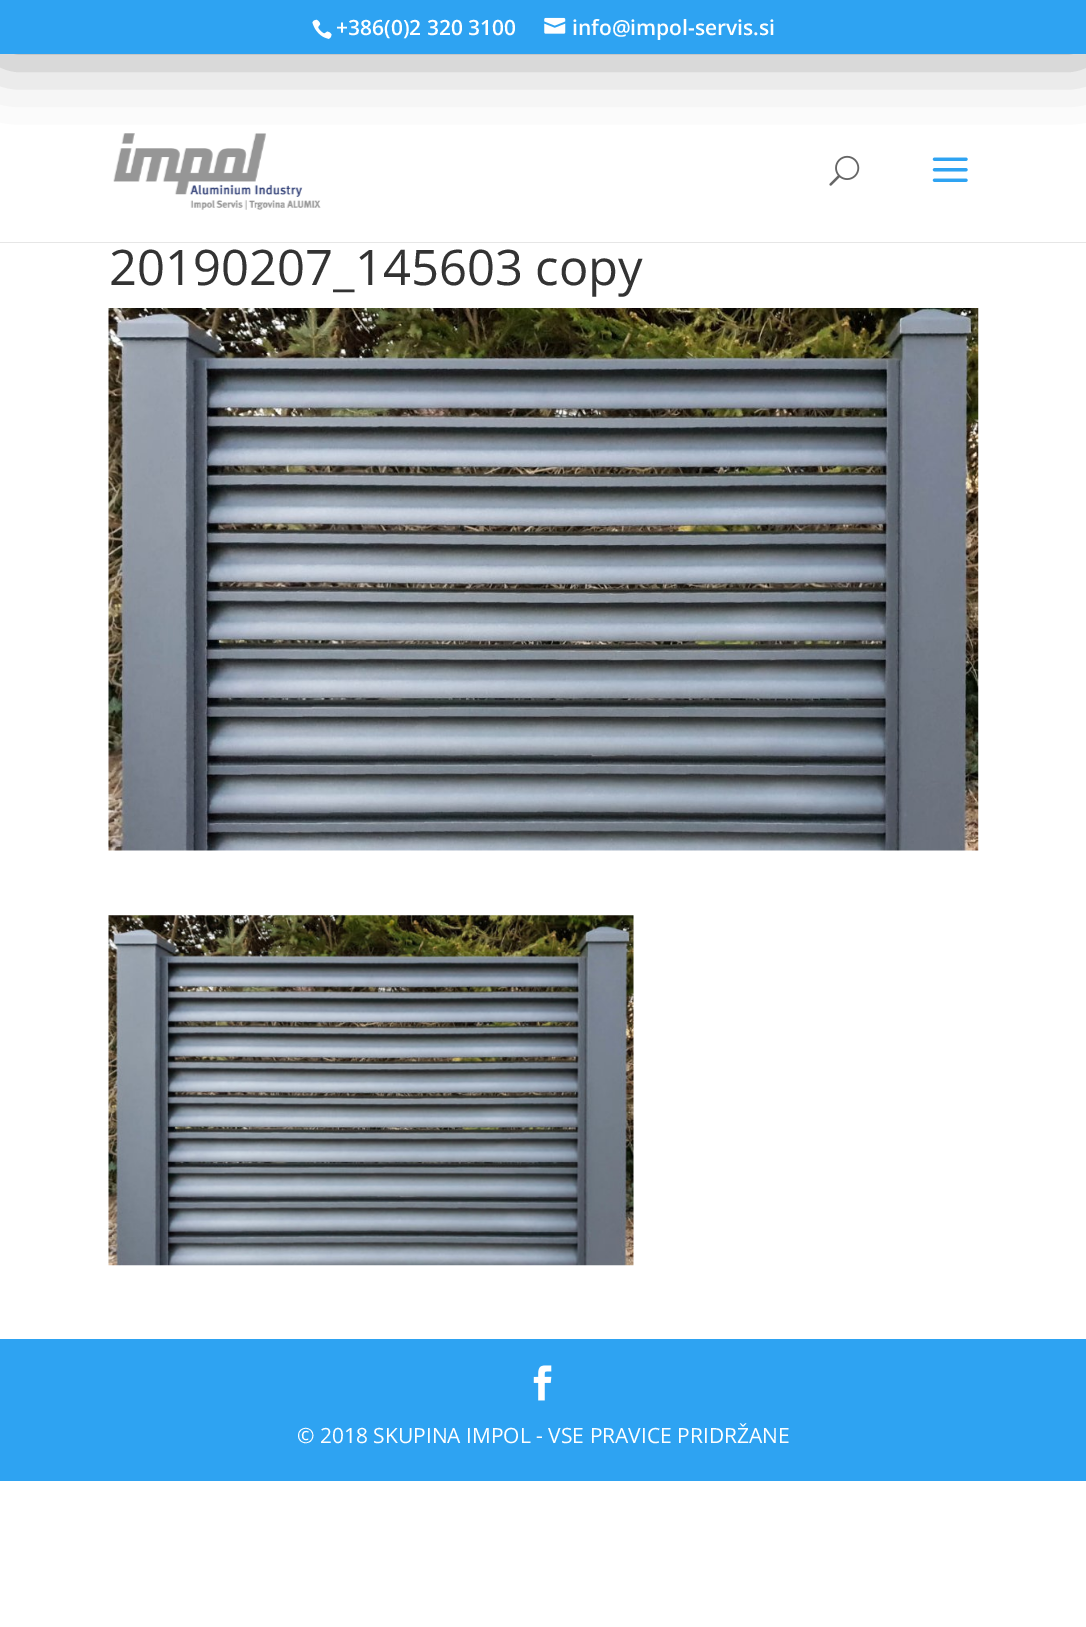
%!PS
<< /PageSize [1086 1627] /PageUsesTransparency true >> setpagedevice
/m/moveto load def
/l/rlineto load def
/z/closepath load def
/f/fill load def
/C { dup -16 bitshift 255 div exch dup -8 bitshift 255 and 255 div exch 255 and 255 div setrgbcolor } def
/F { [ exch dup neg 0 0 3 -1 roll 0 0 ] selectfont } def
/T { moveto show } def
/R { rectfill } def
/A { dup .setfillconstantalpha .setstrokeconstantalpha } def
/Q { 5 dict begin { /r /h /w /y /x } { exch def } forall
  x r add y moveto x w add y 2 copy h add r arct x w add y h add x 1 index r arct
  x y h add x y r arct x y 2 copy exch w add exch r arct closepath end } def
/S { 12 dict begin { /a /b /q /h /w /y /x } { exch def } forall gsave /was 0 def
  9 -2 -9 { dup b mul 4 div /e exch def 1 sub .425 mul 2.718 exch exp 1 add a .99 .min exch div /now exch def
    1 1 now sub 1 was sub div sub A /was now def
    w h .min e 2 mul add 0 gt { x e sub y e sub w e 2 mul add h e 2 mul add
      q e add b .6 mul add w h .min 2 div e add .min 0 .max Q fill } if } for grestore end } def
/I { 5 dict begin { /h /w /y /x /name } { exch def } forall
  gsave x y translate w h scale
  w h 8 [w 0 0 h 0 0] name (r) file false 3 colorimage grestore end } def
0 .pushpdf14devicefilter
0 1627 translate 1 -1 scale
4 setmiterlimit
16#FFFFFF C
0 0 1086 1627 R
(3.rgb) 113 133 208 77 I
16#000000 C
0 -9 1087 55 0 35 .5 S
16#2EA3F2 C
0 0 1086 54 R
(1.rgb) 312 19 20 20 I
/OpenSans-SemiBold 21 F
16#FFFFFF C
(+386\(0\)2 320 3100) 336 35 T
(2.rgb) 544 17 22 17 I
(info@impol-servis.si) 572 35 T
16#E6E6E6 C
0 242 m 0 1 l 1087 0 l 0 -140 l 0 139 l z f
(4.rgb) 829 155 31 31 I
(5.rgb) 932 157 36 25 I
/OpenSans-Regular 49 F
16#333333 C
(20190207_145603 copy) 109 285 T
(6.rgb) 108 308 871 543 I
(7.rgb) 108 915 526 351 I
16#2EA3F2 C
0 1339 1086 142 R
(8.rgb) 533 1365 19 36 I
/OpenSans-Regular 21 F
16#FFFFFF C
(© 2018 SKUPINA IMPOL - VSE PRAVICE PRIDRŽANE) 297 1443 T
.poppdf14devicefilter showpage
